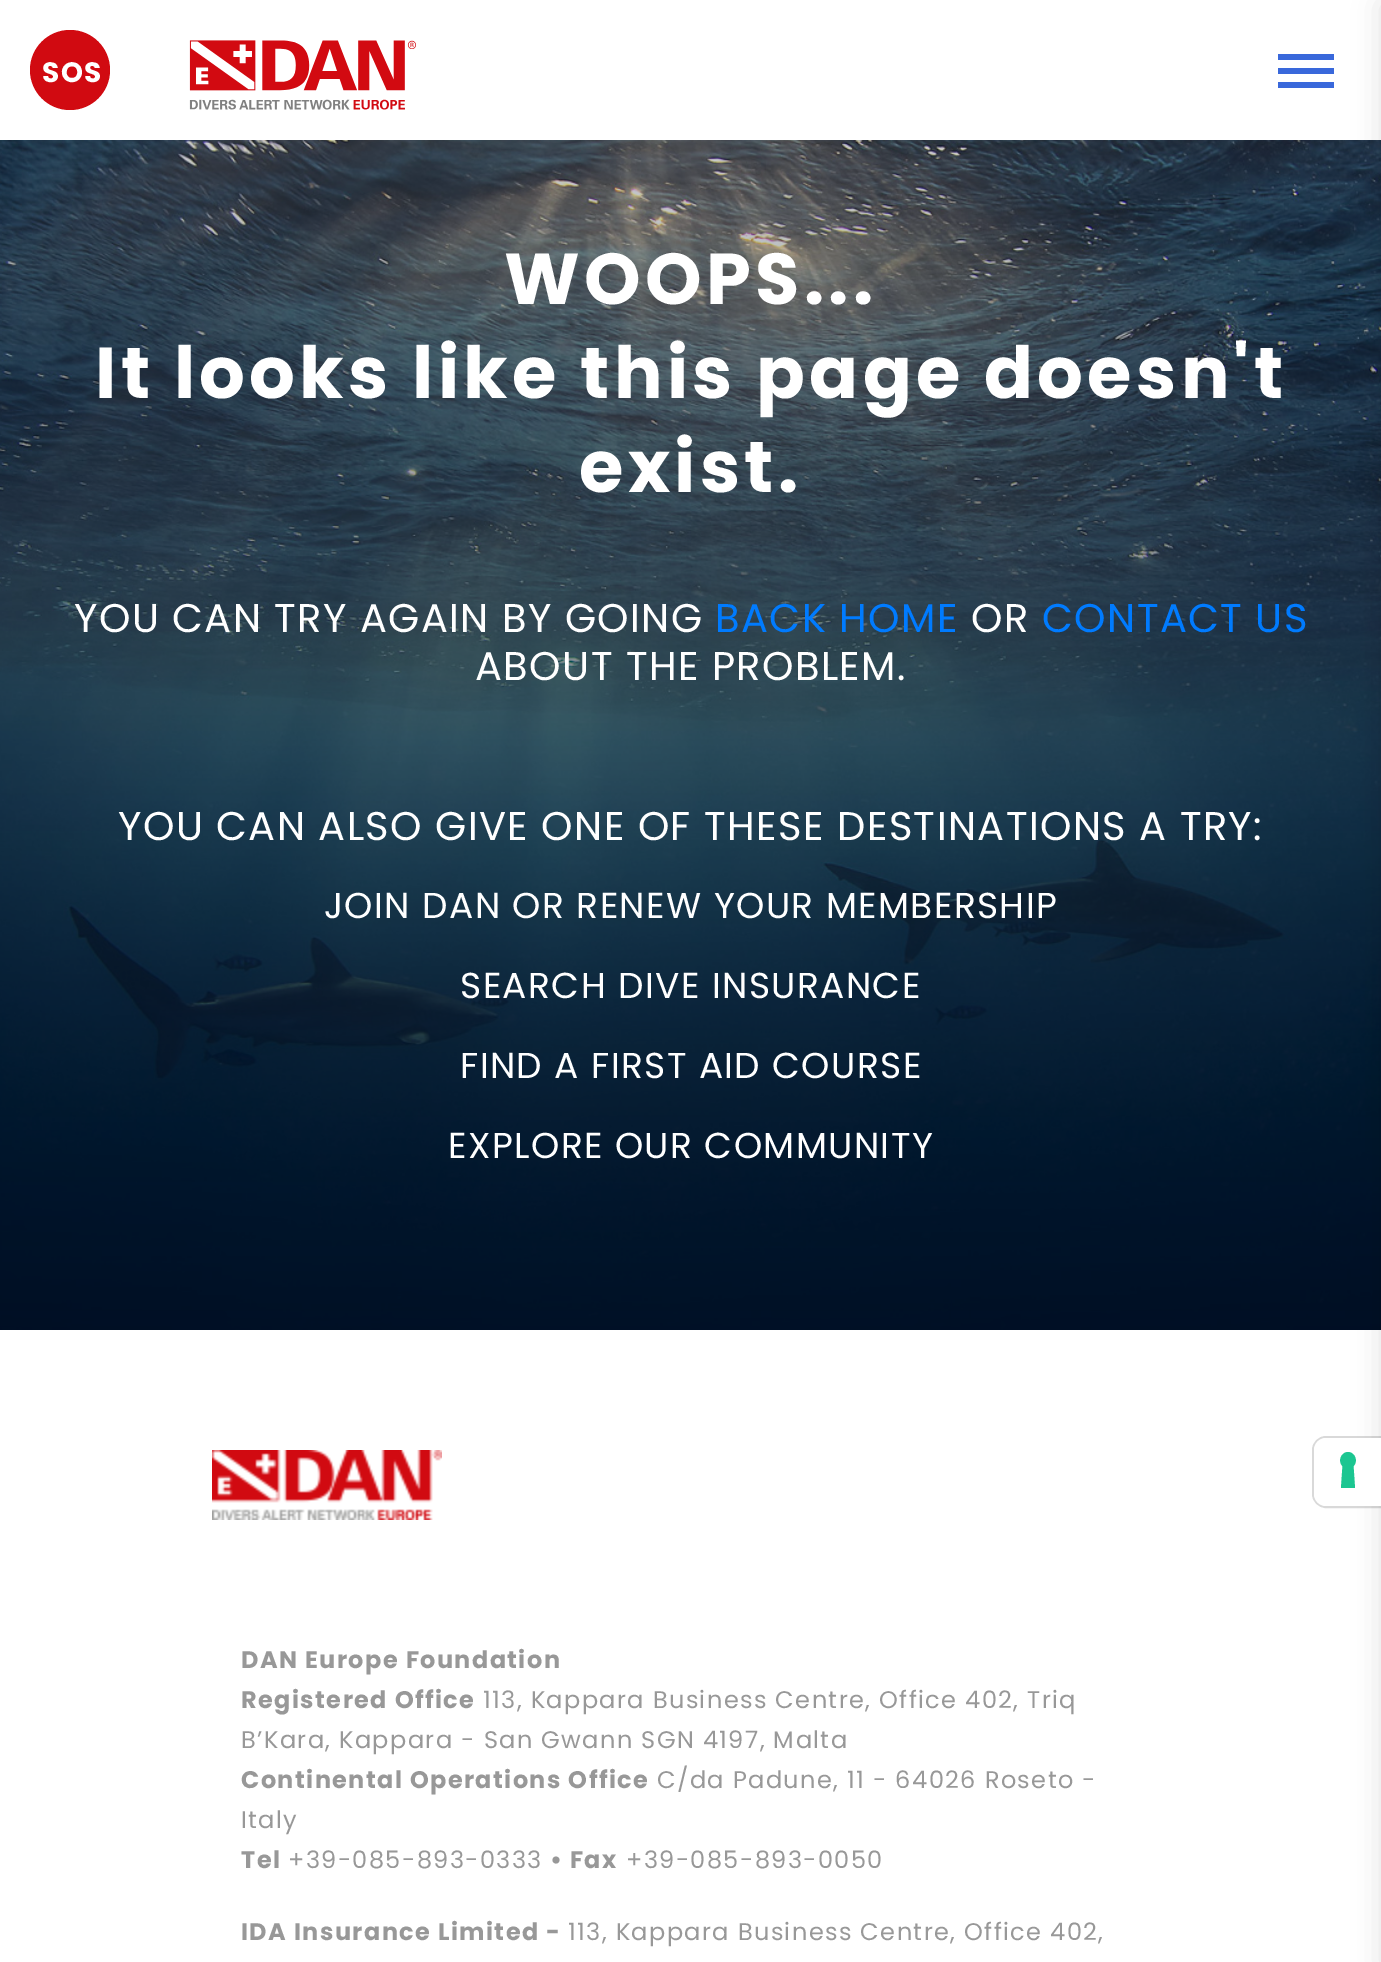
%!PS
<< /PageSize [1381 1962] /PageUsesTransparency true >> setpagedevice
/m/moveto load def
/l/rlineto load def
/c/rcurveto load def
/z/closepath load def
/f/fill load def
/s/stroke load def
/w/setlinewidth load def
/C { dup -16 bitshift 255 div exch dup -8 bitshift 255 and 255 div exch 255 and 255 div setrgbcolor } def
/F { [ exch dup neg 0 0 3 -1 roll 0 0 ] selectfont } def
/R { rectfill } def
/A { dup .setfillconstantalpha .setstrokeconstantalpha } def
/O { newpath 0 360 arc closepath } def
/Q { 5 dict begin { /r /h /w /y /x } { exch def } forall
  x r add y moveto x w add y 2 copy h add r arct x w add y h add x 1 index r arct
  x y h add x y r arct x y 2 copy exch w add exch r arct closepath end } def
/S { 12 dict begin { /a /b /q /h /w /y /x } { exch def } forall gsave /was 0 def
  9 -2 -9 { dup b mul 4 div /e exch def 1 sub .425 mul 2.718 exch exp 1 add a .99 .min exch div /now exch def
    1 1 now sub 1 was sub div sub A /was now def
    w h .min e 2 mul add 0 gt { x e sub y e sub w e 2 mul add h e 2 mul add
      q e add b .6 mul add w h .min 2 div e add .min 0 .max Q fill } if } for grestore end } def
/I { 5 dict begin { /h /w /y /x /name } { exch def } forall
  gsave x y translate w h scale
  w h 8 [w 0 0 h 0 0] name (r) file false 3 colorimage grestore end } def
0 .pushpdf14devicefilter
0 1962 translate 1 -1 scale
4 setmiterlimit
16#FFFFFF C
0 0 1381 1962 R
16#D10A11 C
70 70 40 O f
/Poppins-Bold 28 F
16#FFFFFF C
42 82 m 1.4 0 (SOS) ashow
(1.rgb) 189 40 227 70 I
16#3968DB C
1278 60 m 0 -6 l 56 0 l 0 6 l z 1278 74 m 0 -6 l 56 0 l 0 6 l z 1278 88 m 0 -6 l 56 0 l 0 6 l z f
(2.rgb) 0 140 1381 1190 I
16#000000 C
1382 4 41 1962 0 14 .12 S
/Poppins-Bold 72 F
16#FFFFFF C
504 304 m 4.3 0 (WOOPS...) ashow
95 398 m 4.3 0 (It looks like this page doesn't) ashow
579 492 m 4.3 0 (exist.) ashow
/Poppins-Regular 40 F
74 632 m 1.4 0 (YOU CAN TRY AGAIN BY GOING) ashow
16#007BFF C
715 632 m 1.4 0 (BACK HOME) ashow
16#FFFFFF C
971 632 m 1.4 0 (OR) ashow
16#007BFF C
1042 632 m 1.4 0 (CONTACT US) ashow
16#FFFFFF C
475 680 m 1.4 0 (ABOUT THE PROBLEM.) ashow
118 840 m 1.4 0 (YOU CAN ALSO GIVE ONE OF THESE DESTINATIONS A TRY:) ashow
/Poppins-Regular 36 F
324 918 m 1.4 0 (JOIN DAN OR RENEW YOUR MEMBERSHIP) ashow
460 998 m 1.4 0 (SEARCH DIVE INSURANCE) ashow
460 1078 m 1.4 0 (FIND A FIRST AID COURSE) ashow
448 1158 m 1.4 0 (EXPLORE OUR COMMUNITY) ashow
(3.rgb) 212 1450 230 70 I
/Poppins-Bold 24 F
16#989898 C
241 1668 m 1.4 0 (DAN Europe Foundation) ashow
241 1708 m 1.4 0 (Registered Office) ashow
/Poppins-Regular 24 F
483 1708 m 1.4 0 (113, Kappara Business Centre, Office 402, Triq) ashow
241 1748 m 1.4 0 (B’Kara, Kappara - San Gwann SGN 4197, Malta) ashow
/Poppins-Bold 24 F
241 1788 m 1.4 0 (Continental Operations Office) ashow
/Poppins-Regular 24 F
657 1788 m 1.4 0 (C/da Padune, 11 - 64026 Roseto -) ashow
241 1828 m 1.4 0 (Italy) ashow
/Poppins-Bold 24 F
241 1868 m 1.4 0 (Tel) ashow
/Poppins-Regular 24 F
288 1868 m 1.4 0 (+39-085-893-0333) ashow
/Poppins-Bold 24 F
550 1868 m 1.4 0 (• Fax) ashow
/Poppins-Regular 24 F
626 1868 m 1.4 0 (+39-085-893-0050) ashow
/Poppins-Bold 24 F
241 1940 m 1.4 0 (IDA Insurance Limited -) ashow
/Poppins-Regular 24 F
568 1940 m 1.4 0 (113, Kappara Business Centre, Office 402,) ashow
0.15 A
16#000000 C
2 w
1326 1437 m 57 0 l 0 70 l -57 0 l -7 0 -13 -6 -13 -13 c 0 -44 l 0 -7 6 -13 13 -13 c z s
1 A
16#FFFFFF C
1326 1438 m 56 0 l 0 68 l -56 0 l -6.5 0 -12 -5.5 -12 -12 c 0 -44 l 0 -6.5 5.5 -12 12 -12 c z f
16#1CC691 C
1348 1452 m 7 0 10.5 9.5 5.5 14 c 1.5 22 l -14 0 l 1.5 -22 l -5 -4.5 -1.5 -14 5.5 -14 c z eofill
.poppdf14devicefilter showpage
